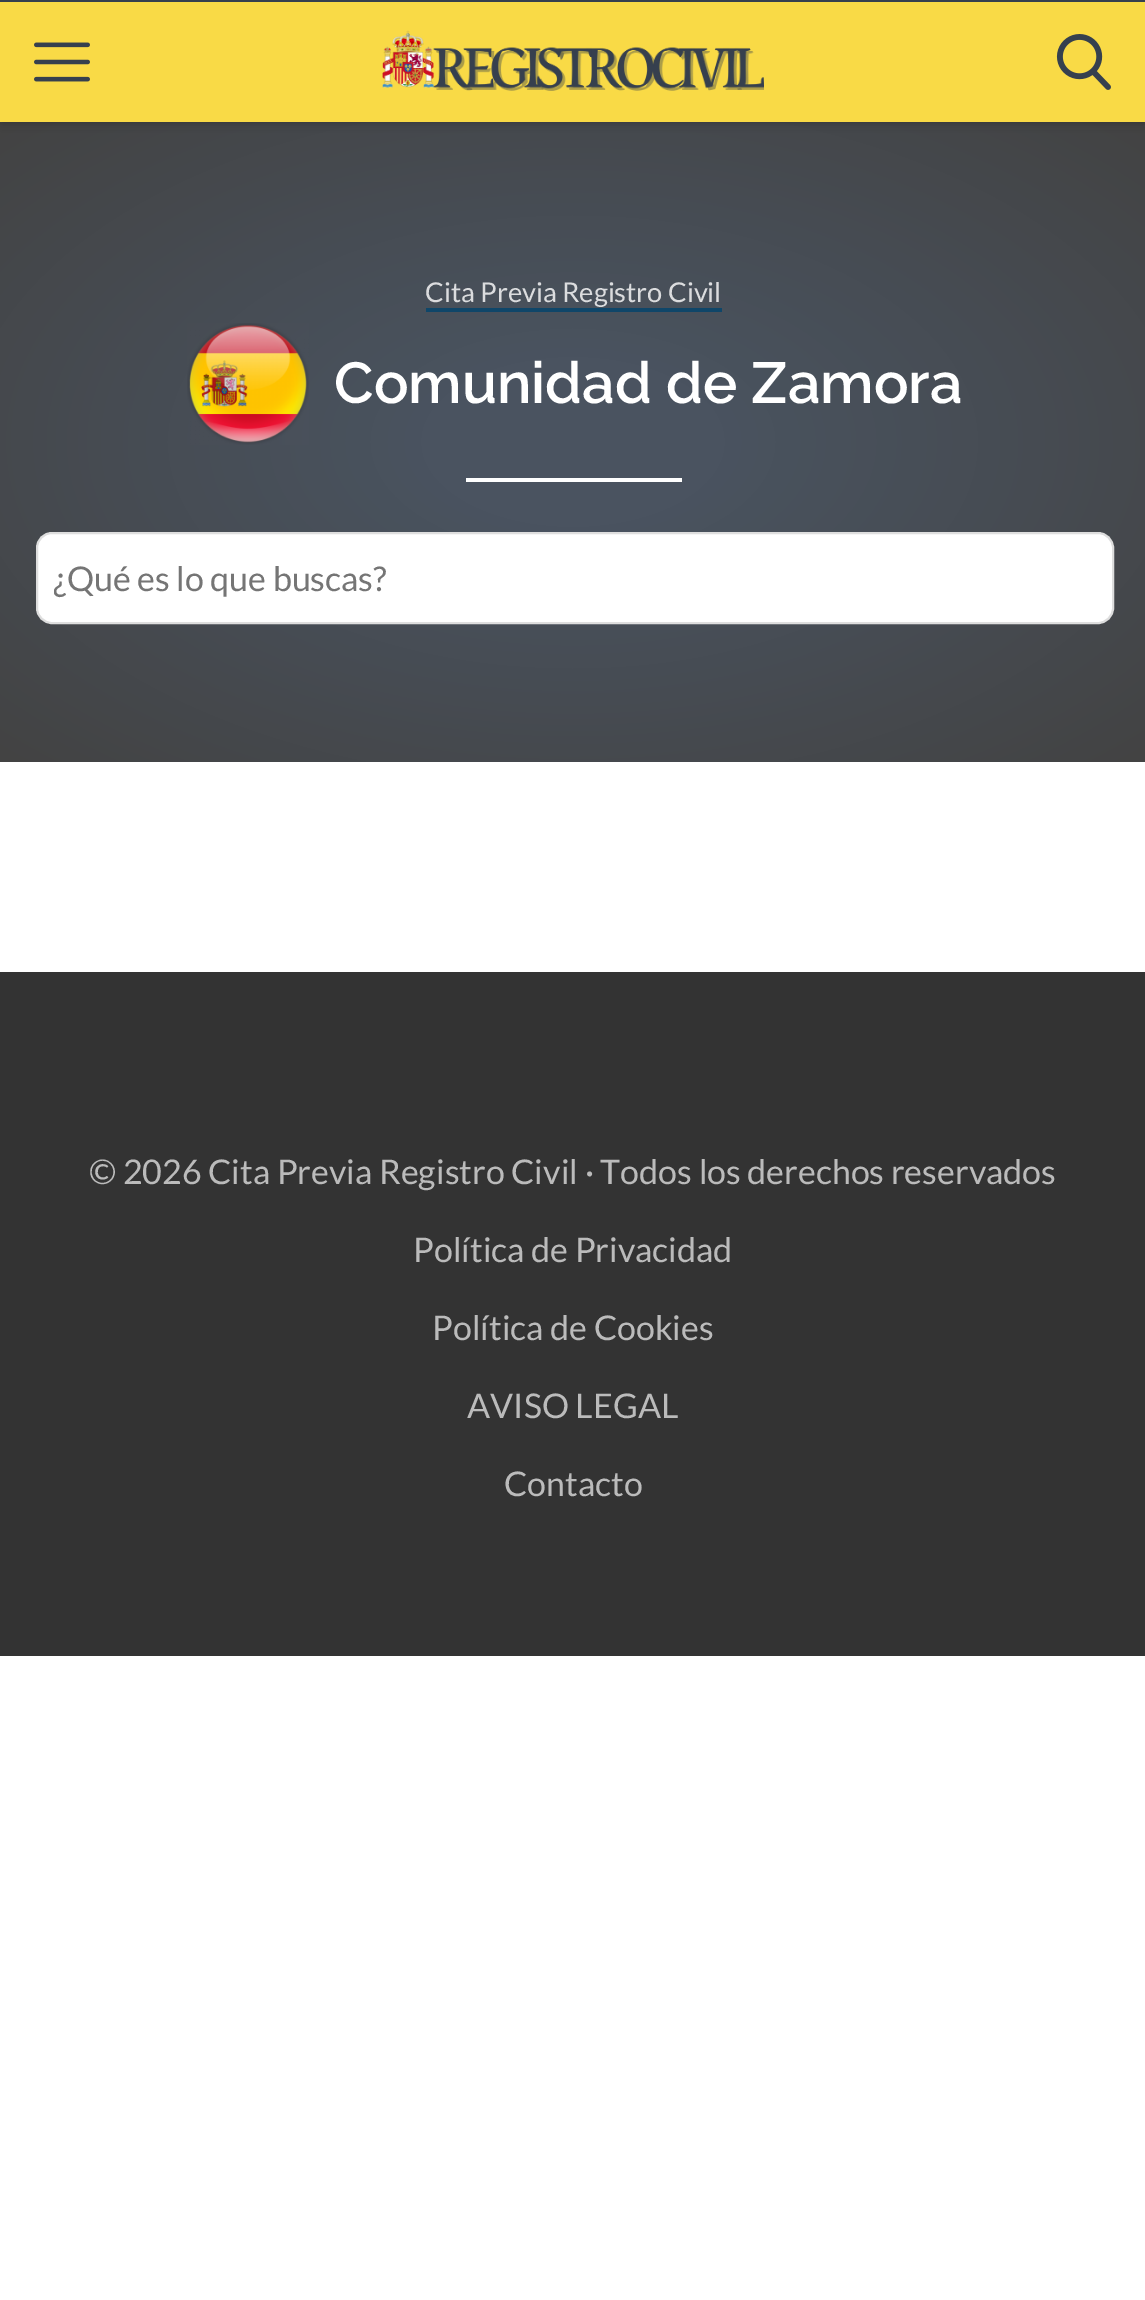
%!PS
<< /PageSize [1145 2300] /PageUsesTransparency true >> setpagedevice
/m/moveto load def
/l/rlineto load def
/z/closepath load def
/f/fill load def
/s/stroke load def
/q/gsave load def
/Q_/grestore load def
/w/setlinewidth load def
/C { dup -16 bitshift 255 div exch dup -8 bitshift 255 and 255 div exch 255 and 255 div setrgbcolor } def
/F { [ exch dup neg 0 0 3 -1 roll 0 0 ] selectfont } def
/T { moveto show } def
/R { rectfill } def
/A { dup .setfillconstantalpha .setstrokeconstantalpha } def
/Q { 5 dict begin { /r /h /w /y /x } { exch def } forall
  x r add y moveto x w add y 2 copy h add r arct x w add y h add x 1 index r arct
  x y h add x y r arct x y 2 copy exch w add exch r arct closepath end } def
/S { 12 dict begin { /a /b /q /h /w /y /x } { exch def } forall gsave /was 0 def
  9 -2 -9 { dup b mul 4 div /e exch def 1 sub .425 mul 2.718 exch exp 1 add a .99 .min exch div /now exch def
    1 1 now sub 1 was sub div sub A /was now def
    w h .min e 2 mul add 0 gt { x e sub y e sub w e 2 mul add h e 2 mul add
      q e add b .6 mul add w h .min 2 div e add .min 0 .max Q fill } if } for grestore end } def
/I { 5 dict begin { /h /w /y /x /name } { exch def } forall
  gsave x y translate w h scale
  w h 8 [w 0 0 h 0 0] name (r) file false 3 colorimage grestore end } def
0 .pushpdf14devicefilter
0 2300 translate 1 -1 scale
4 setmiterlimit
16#FFFFFF C
0 0 1145 2300 R
q 0 122 m 1145 0 l 0 640 l -1145 0 l z clip newpath 573 442 translate 810 453 scale
<< /ShadingType 3 /ColorSpace /DeviceRGB /Coords [0 0 0 0 0 1] /Extend [true true] /Function << /FunctionType 3 /Domain [0 1] /Functions [<< /FunctionType 2 /Domain [0 1] /C0 [.29 .325 .376] /C1 [.29 .325 .376] /N 1 >> << /FunctionType 2 /Domain [0 1] /C0 [.29 .325 .376] /C1 [.263 .263 .263] /N 1 >>] /Bounds [.18] /Encode [0 1 0 1] >> >> shfill Q_
16#000000 C
2 4 1142 118 0 5 .25 S
16#F9DA46 C
0 2 1145 120 R
16#36404E C
0 0 1145 2 R
(1.rgb) 34 42 56 40 I
(2.rgb) 382 30 382 61 I
(3.rgb) 1056 34 55 56 I
/Lato-Regular 27.25 F
16#DBDCDE C
(Cita Previa Registro Civil) 425 302 T
16#0F4669 C
426 308 296 4 R
(4.rgb) 187 323 122 122 I
/Raleway-SemiBold 57.75 F
16#FFFFFF C
(Comunidad de Zamora) 334 403 T
466 478 216 4 R
37 533 1076 90 15 Q q f Q_
16#DEDEDE C
2 w
s
q
54 556 1008 42 rectclip
/Lato-Regular 34 F
16#757575 C
(¿Qué es lo que buscas?) 53 591 T
Q_
16#333333 C
0 972 1145 684 R
/Lato-Regular 34 F
16#BBBBBB C
(© 2026 Cita Previa Registro Civil · Todos los derechos reservados) 89 1184 T
(Política de Privacidad) 413 1262 T
(Política de Cookies) 432 1340 T
(AVISO LEGAL) 467 1418 T
(Contacto) 504 1496 T
.poppdf14devicefilter showpage
